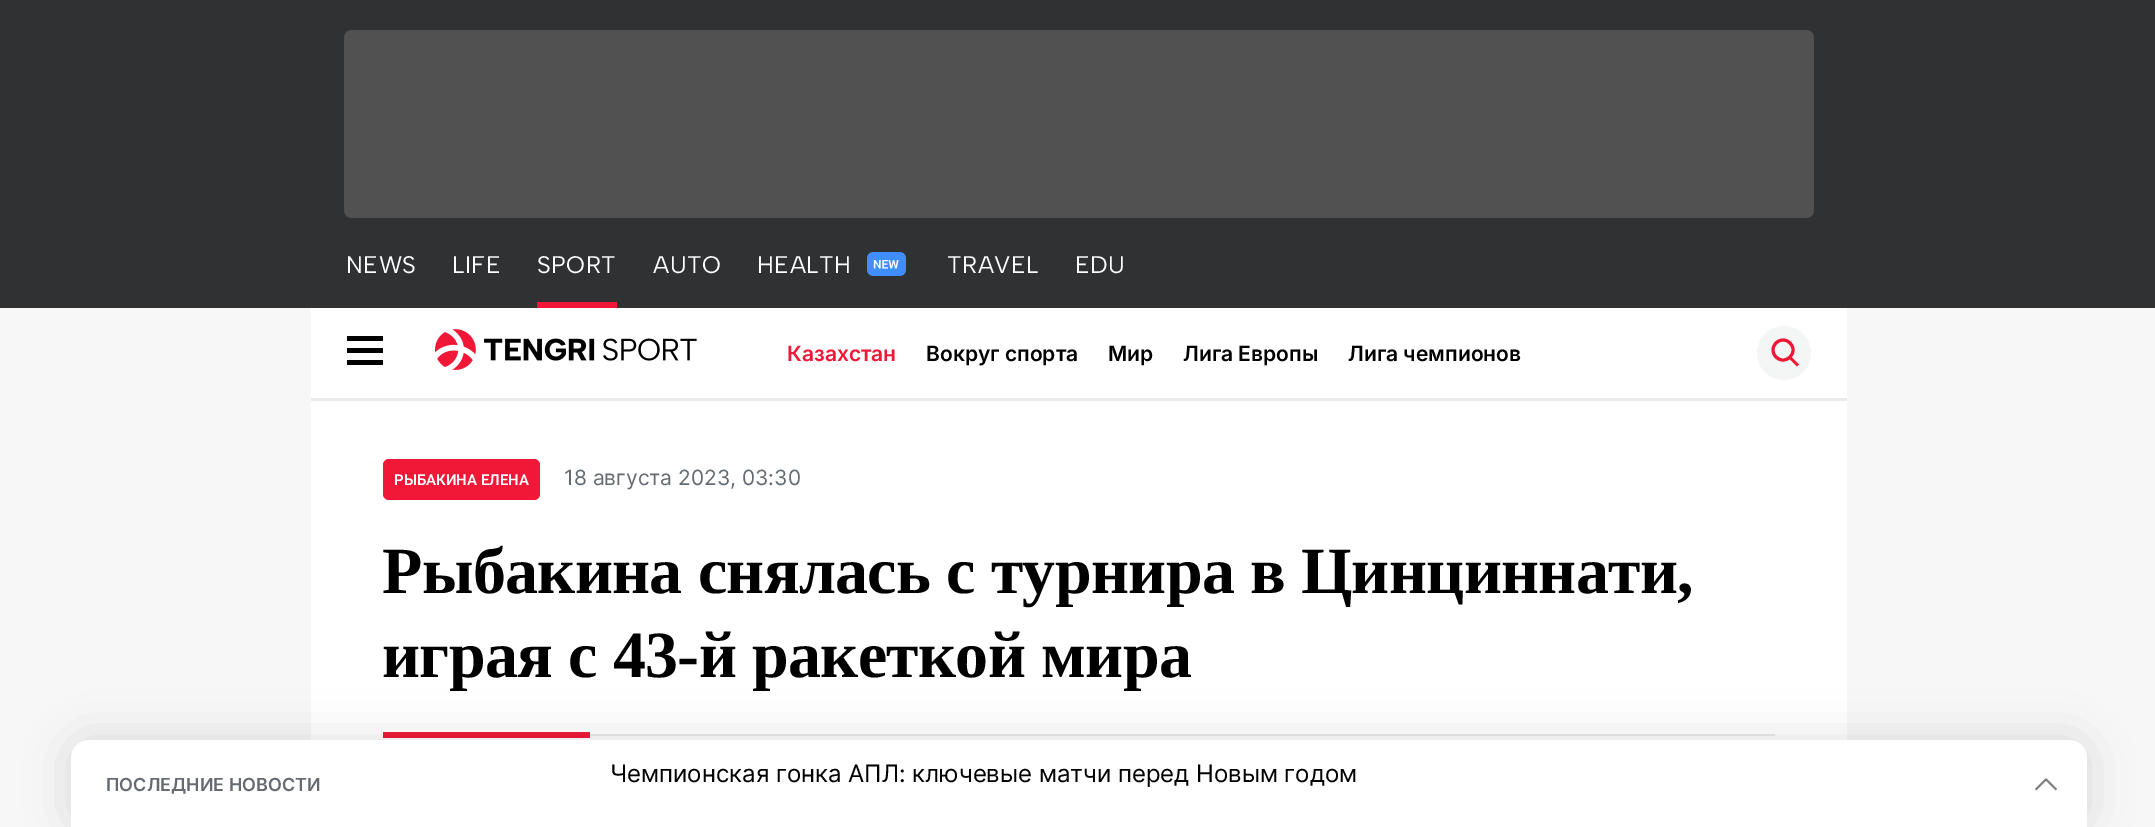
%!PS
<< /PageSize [2155 827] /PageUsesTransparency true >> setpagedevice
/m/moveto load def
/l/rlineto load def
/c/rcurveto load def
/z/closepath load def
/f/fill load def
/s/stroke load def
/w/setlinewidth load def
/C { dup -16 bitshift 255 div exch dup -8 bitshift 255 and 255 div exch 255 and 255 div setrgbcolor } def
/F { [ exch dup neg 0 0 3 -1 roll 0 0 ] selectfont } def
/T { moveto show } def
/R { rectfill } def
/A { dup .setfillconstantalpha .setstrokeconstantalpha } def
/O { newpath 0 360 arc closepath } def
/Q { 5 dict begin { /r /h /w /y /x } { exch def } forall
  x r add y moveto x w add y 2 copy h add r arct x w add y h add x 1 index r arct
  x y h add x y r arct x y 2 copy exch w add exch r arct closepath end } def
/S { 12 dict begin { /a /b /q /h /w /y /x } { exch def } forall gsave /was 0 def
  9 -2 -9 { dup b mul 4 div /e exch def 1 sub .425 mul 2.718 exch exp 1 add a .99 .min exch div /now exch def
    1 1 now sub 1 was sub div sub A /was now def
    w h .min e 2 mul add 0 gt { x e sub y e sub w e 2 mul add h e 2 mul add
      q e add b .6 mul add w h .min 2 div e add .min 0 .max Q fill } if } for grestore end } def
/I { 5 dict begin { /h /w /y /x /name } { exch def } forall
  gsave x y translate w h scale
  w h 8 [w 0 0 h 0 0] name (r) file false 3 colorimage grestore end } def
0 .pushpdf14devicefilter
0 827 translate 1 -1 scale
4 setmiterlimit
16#F8F7F7 C
0 0 2155 827 R
16#303133 C
0 0 2155 308 R
16#515151 C
344 30 1470 188 8 Q f
/AlbertSans-Regular 24 F
16#FFFFFF C
346 273 m .5 0 (NEWS) ashow
452 273 m .5 0 (LIFE) ashow
16#F01836 C
537 302 80 6 R
16#FFFFFF C
537 273 m .5 0 (SPORT) ashow
653 273 m .5 0 (AUTO) ashow
757 273 m .5 0 (HEALTH) ashow
(1.rgb) 867 252 39 24 I
947 273 m .5 0 (TRAVEL) ashow
1075 273 m .5 0 (EDU) ashow
311 308 1536 432 R
16#EAEAEB C
311 398 1536 3 R
16#000000 C
347 336 36 5 R
347 348 36 5 R
347 360 36 5 R
(2.rgb) 435 329 262 41 I
/Inter-SemiBold 21 F
16#F01836 C
(Казахстан) 787 361 T
16#000000 C
(Вокруг спорта) 926 361 T
(Мир) 1108 361 T
(Лига Европы) 1183 361 T
(Лига чемпионов) 1348 361 T
16#F4F5F5 C
1784 353 27 O f
16#F01836 C
3 w
1783 350 10 O s
1796 365.5 m 1 1 l 2 -2 l -1 -1 l z 1788.5 358 m 7.5 7.5 l 2 -2 l -7.5 -7.5 l z f
383 459 157 41 6 Q f
/Roboto-SemiBold 15 F
16#FFFFFF C
(РЫБАКИНА ЕЛЕНА) 394 485 T
/Inter-Regular 21 F
16#656B71 C
(18 августа 2023, 03:30) 564 485 T
16#EAEAEB C
590 734 1185 2 R
/LiberationSerif-Bold 66 F
16#000000 C
382 593 m -.65 0 (Рыбакина снялась с турнира в Цинциннати,) ashow
382 677 m -.65 0 (играя с 43-й ракеткой мира) ashow
16#F01836 C
383 732 207 6 R
16#000000 C
71 740 2016 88 18 22.5 .12 S
16#FFFFFF C
89 740 m 1980 0 l 10 0 18 8 18 18 c 0 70 l -2016 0 l 0 -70 l 0 -10 8 -18 18 -18 c z f
/Inter-SemiBold 18 F
16#656B71 C
(ПОСЛЕДНИЕ НОВОСТИ) 106 791 T
(3.rgb) 2035 778 22 13 I
/Inter-Regular 24 F
16#000000 C
(Чемпионская гонка АПЛ: ключевые матчи перед Новым годом) 610 782 T
.poppdf14devicefilter showpage
